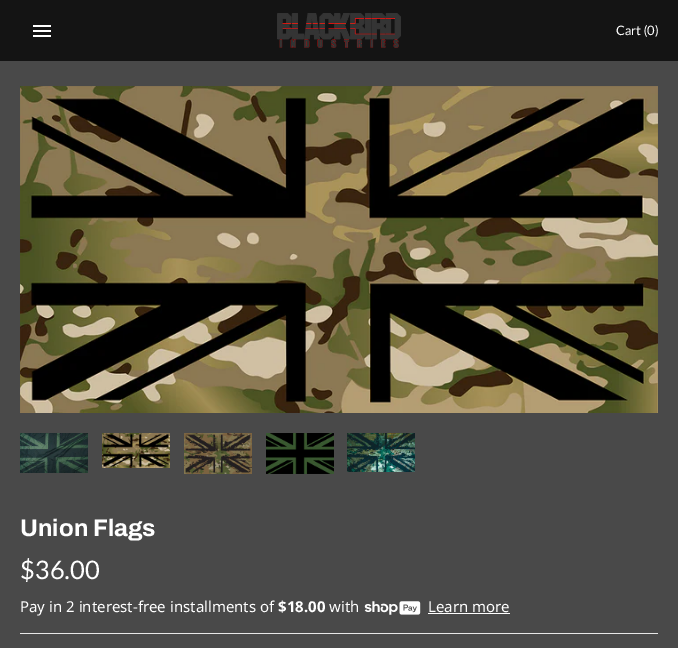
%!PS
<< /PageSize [678 648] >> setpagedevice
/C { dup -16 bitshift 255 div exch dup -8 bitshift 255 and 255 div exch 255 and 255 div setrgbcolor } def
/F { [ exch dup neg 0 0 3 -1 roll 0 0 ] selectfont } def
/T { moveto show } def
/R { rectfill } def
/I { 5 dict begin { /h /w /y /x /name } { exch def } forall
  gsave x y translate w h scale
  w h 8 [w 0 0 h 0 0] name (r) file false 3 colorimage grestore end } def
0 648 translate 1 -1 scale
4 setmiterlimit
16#494949 C
0 0 678 648 R
16#141414 C
0 0 678 61 R
(1.rgb) 33 25 18 12 I
(2.rgb) 277 13 124 35 I
/Lato-Regular 13 F
16#FFFFFF C
(Cart \(0\)) 616 35 T
(3.rgb) 20 86 638 327 I
(4.rgb) 20 433 68 40 I
(5.rgb) 102 433 68 35 I
(6.rgb) 184 433 68 41 I
(7.rgb) 266 433 68 41 I
(8.rgb) 347 433 68 39 I
/Archivo-Bold 24 F
(Union Flags) 20 536 T
/Lato-Regular 25.5 F
($36.00) 20 579 T
/NotoSans-Regular 15 F
(Pay in 2 interest-free installments of) 20 612 T
/NotoSans-Bold 15 F
($18.00) 278 612 T
/NotoSans-Regular 15 F
(with) 329 612 T
(9.rgb) 364 601 57 14 I
(Learn more) 428 612 T
428 613 82 1 R
16#E7E7E7 C
20 633 638 1 R
showpage
